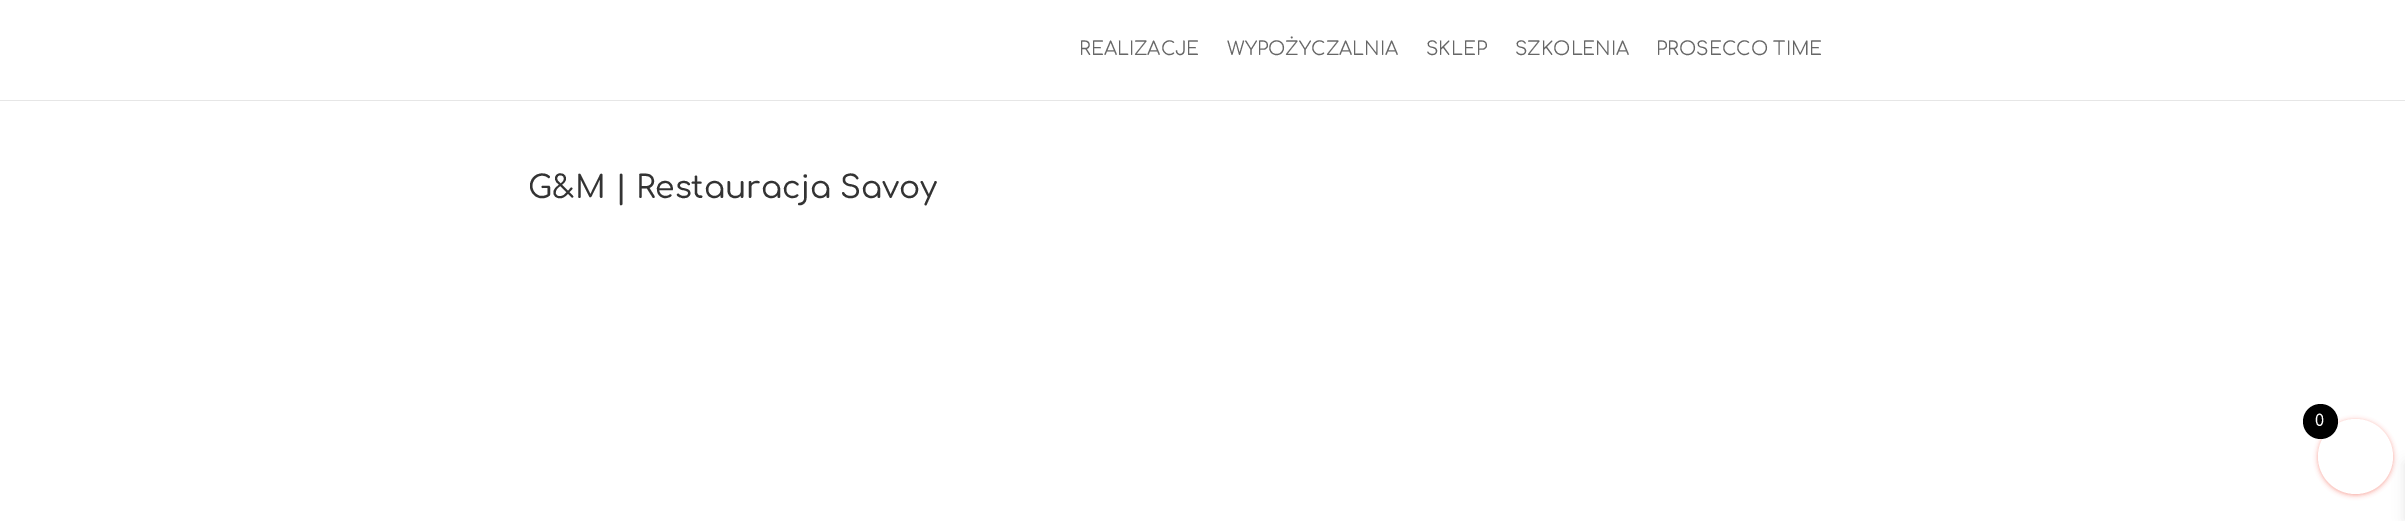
%!PS
<< /PageSize [2405 521] /PageUsesTransparency true >> setpagedevice
/f/fill load def
/C { dup -16 bitshift 255 div exch dup -8 bitshift 255 and 255 div exch 255 and 255 div setrgbcolor } def
/F { [ exch dup neg 0 0 3 -1 roll 0 0 ] selectfont } def
/T { moveto show } def
/R { rectfill } def
/A { dup .setfillconstantalpha .setstrokeconstantalpha } def
/O { newpath 0 360 arc closepath } def
/Q { 5 dict begin { /r /h /w /y /x } { exch def } forall
  x r add y moveto x w add y 2 copy h add r arct x w add y h add x 1 index r arct
  x y h add x y r arct x y 2 copy exch w add exch r arct closepath end } def
/S { 12 dict begin { /a /b /q /h /w /y /x } { exch def } forall gsave /was 0 def
  9 -2 -9 { dup b mul 4 div /e exch def 1 sub .425 mul 2.718 exch exp 1 add a .99 .min exch div /now exch def
    1 1 now sub 1 was sub div sub A /was now def
    w h .min e 2 mul add 0 gt { x e sub y e sub w e 2 mul add h e 2 mul add
      q e add b .6 mul add w h .min 2 div e add .min 0 .max Q fill } if } for grestore end } def
0 .pushpdf14devicefilter
0 521 translate 1 -1 scale
4 setmiterlimit
16#FFFFFF C
0 0 2405 521 R
16#E6E6E6 C
0 100 2405 1 R
/Comfortaa-Regular 18.75 F
16#666666 C
(REALIZACJE) 1079 55 T
(WYPOŻYCZALNIA) 1227 55 T
(SKLEP) 1426 55 T
(SZKOLENIA) 1515 55 T
(PROSECCO TIME) 1656 55 T
/Comfortaa-Medium 31.25 F
16#333333 C
(G&M | Restauracja Savoy) 528 198 T
16#F7A299 C
2318 420 75 75 37.5 2.5 1 S
16#000000 C
2405 463 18 57 0 6 .1 S
16#FFFFFF C
2355.5 456.5 37.5 O f
16#000000 C
2320.5 421.5 17.5 O f
/Comfortaa-Medium 16 F
16#FFFFFF C
(0) 2315 426 T
.poppdf14devicefilter showpage
